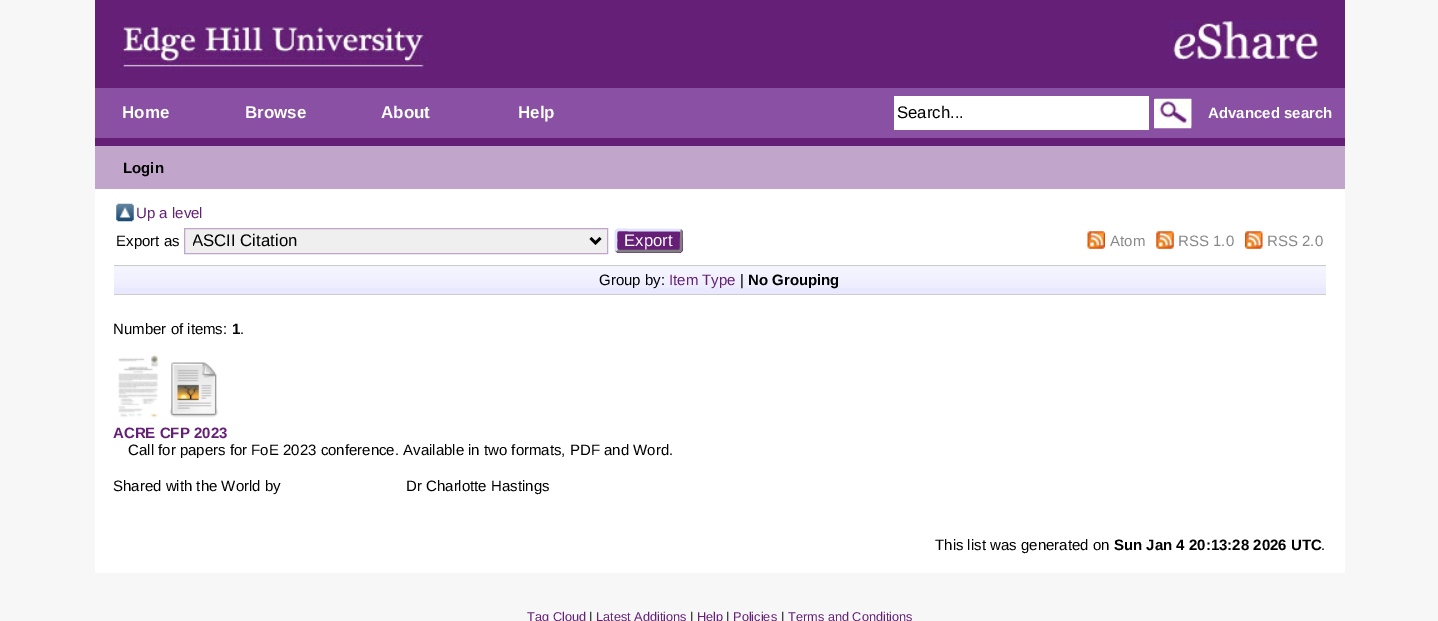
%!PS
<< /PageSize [1438 621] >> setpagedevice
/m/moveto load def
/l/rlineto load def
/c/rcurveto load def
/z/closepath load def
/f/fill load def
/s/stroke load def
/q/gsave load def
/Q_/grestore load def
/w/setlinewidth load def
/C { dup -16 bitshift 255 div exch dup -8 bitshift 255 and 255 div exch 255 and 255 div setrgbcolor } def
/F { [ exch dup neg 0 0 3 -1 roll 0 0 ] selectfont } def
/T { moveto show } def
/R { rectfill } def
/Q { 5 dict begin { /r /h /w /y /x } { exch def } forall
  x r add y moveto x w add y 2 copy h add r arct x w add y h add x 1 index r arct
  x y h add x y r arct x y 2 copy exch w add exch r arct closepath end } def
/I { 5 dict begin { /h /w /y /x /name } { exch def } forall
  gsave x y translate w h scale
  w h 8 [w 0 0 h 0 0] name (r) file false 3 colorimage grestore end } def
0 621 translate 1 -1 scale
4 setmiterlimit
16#F7F7F7 C
0 0 1438 621 R
16#651F77 C
95 0 1250 146 R
(1.rgb) 120 26 308 44 I
(2.rgb) 1170 20 150 43 I
16#8A50A4 C
95 88 1250 50 R
/LiberationSans-Bold 17 F
16#FFFFFF C
(Home) 122 118 T
(Browse) 245 118 T
(About) 381 118 T
(Help) 518 118 T
894 96 255 34 R
/LiberationSans-Regular 16.75 F
16#000000 C
(Search...) 897 118 T
16#FFFFFF C
1155 126 35 1 R
(3.rgb) 1155 98 37 29 I
1154.5 99.5 36 28 rectstroke
/LiberationSans-Bold 15 F
(Advanced search) 1208 118 T
16#C1A5CB C
95 146 1250 43 R
16#000000 C
(Login) 123 173 T
16#FFFFFF C
95 189 1250 384 R
(4.rgb) 116 203 18 19 I
/LiberationSans-Regular 15 F
16#651F77 C
(Up a level) 136 218 T
16#000000 C
(Export as) 116 246 T
16#EFEFEF C
184.5 228.5 m 423 0 l 0 25 l -423 0 l z q f Q_
16#C1A5CB C
s
16#000000 C
2.5 w
590.5 238 m 5 5 l 5 -5 l s
q
193 230 391 21 rectclip
/LiberationSans-Regular 16.75 F
(ASCII Citation) 192 246 T
Q_
16#651F77 C
615 229 68 24 4 Q f
16#808080 C
680.5 230.5 m 2 2 .5 8 .5 10 c 0 13 2 10.5 -12 10.5 c -50 0 l -2 -.5 l s
16#E0E0FF C
617 250.5 m -2 -2 -1 -7.5 -1 -10 c 0 -13 -1.5 -10.5 13 -10.5 c 50 0 l 1.5 .5 l s
/LiberationSans-Regular 16.75 F
16#FFFFFF C
(Export) 624 246 T
(5.rgb) 1087 231 18 18 I
/LiberationSans-Regular 15 F
16#888888 C
(Atom) 1110 246 T
(6.rgb) 1156 231 18 18 I
(RSS 1.0) 1178 246 T
(7.rgb) 1245 231 18 18 I
(RSS 2.0) 1267 246 T
16#E8E8FF C
114 266 1212 28 R
(8.rgb) 114 266 1212 22 I
16#CCCCCC C
114 265 1212 1 R
114 294 1212 1 R
16#000000 C
(Group by:) 599 285 T
16#651F77 C
(Item Type) 669 285 T
16#000000 C
(|) 740 285 T
/LiberationSans-Bold 15 F
(No Grouping) 748 285 T
/LiberationSans-Regular 15 F
(Number of items:) 113 334 T
/LiberationSans-Bold 15 F
(1) 232 334 T
/LiberationSans-Regular 15 F
(.) 240 334 T
(9.rgb) 118 355 41 63 I
(10.rgb) 169 362 50 56 I
/LiberationSans-Bold 15 F
16#651F77 C
(ACRE CFP 2023) 113 438 T
/LiberationSans-Regular 15 F
16#000000 C
(Call for papers for FoE 2023 conference. Available in two formats, PDF and Word.) 128 455 T
(Shared with the World by) 113 491 T
(Dr Charlotte Hastings) 406 491 T
(This list was generated on) 935 550 T
/LiberationSans-Bold 15 F
(Sun Jan 4 20:13:28 2026 UTC) 1114 550 T
/LiberationSans-Regular 15 F
(.) 1321 550 T
/LiberationSans-Regular 12.75 F
16#651F77 C
(Tag Cloud) 527 621 T
16#000000 C
(|) 589 621 T
16#651F77 C
(Latest Additions) 596 621 T
16#000000 C
(|) 690 621 T
16#651F77 C
(Help) 697 621 T
16#000000 C
(|) 726 621 T
16#651F77 C
(Policies) 733 621 T
16#000000 C
(|) 781 621 T
16#651F77 C
(Terms and Conditions) 788 621 T
showpage
